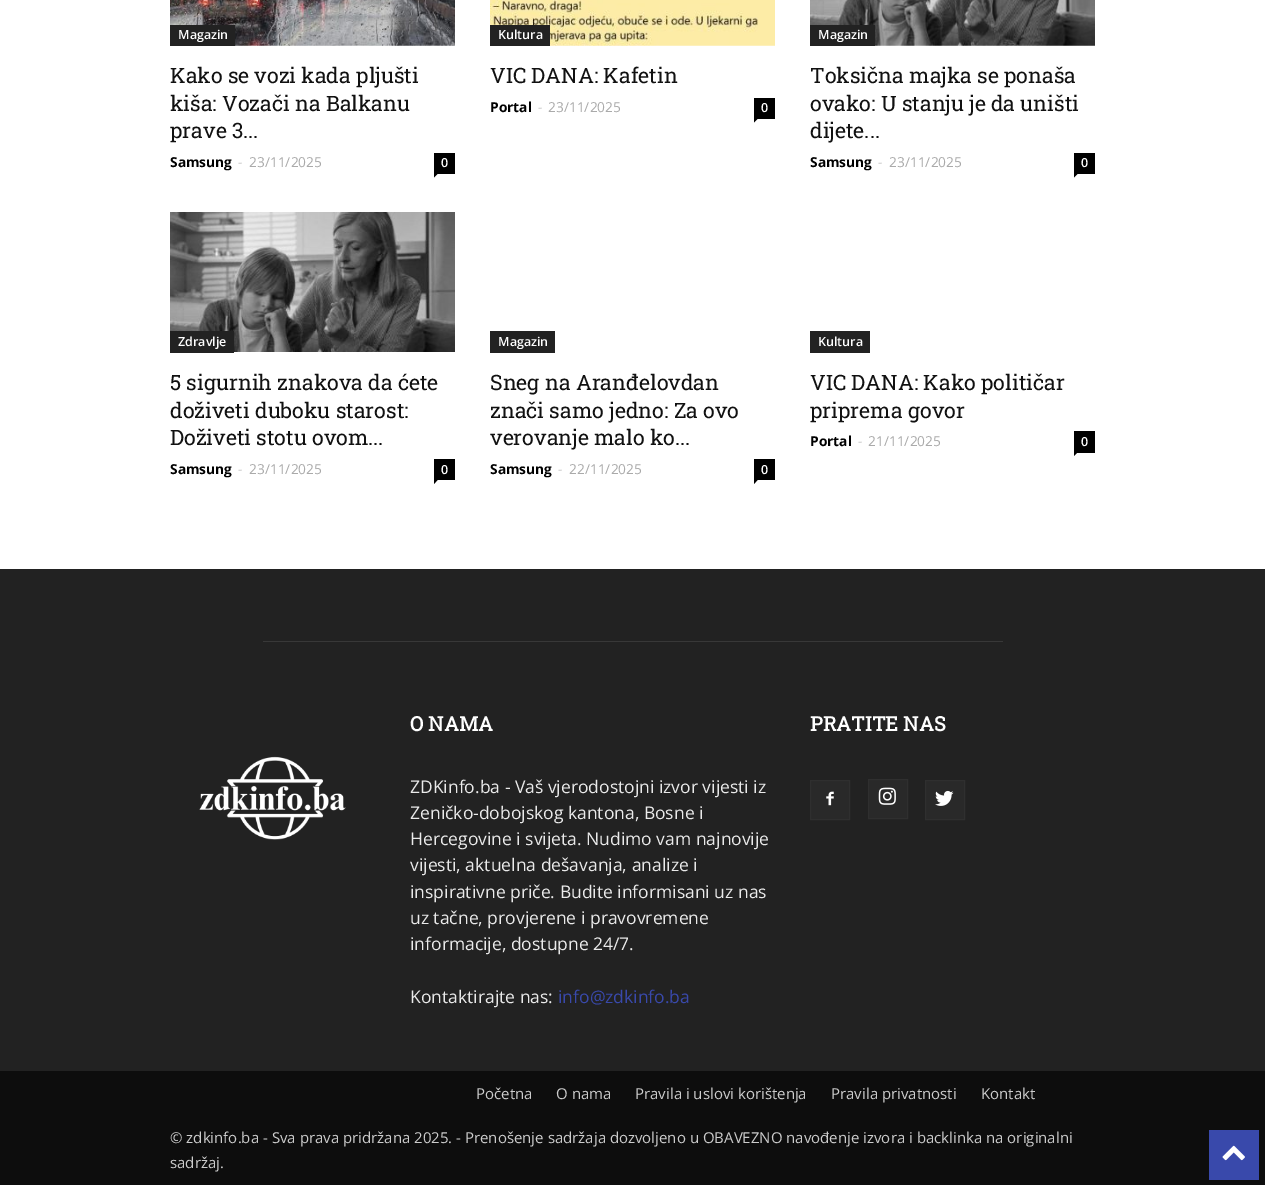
%!PS
<< /PageSize [1265 1185] >> setpagedevice
/m/moveto load def
/l/rlineto load def
/z/closepath load def
/f/fill load def
/C { dup -16 bitshift 255 div exch dup -8 bitshift 255 and 255 div exch 255 and 255 div setrgbcolor } def
/F { [ exch dup neg 0 0 3 -1 roll 0 0 ] selectfont } def
/T { moveto show } def
/R { rectfill } def
/I { 5 dict begin { /h /w /y /x /name } { exch def } forall
  gsave x y translate w h scale
  w h 8 [w 0 0 h 0 0] name (r) file false 3 colorimage grestore end } def
0 1185 translate 1 -1 scale
4 setmiterlimit
16#FFFFFF C
0 0 1265 1185 R
(1.rgb) 170 0 285 46 I
16#222222 C
170 25 65 21 R
/OpenSans-SemiBold 12.5 F
16#FFFFFF C
(Magazin) 178 39 T
/RobotoSlab-Regular 21.25 F
16#111111 C
(Kako se vozi kada pljušti) 170 83 T
(kiša: Vozači na Balkanu) 170 111 T
(prave 3...) 170 138 T
/OpenSans-Bold 13.75 F
16#000000 C
(Samsung) 170 167 T
/OpenSans-Regular 13.75 F
16#CCCCCC C
(-) 238 167 T
16#AAAAAA C
(23/11/2025) 249 167 T
16#000000 C
434 153 21 21 R
/OpenSans-SemiBold 12.5 F
16#FFFFFF C
(0) 441 167 T
16#000000 C
434 174 m 3.5 0 l -3.5 3.5 l z f
(2.rgb) 490 0 285 46 I
16#222222 C
490 25 60 21 R
16#FFFFFF C
(Kultura) 498 39 T
/RobotoSlab-Regular 21.25 F
16#111111 C
(VIC DANA: Kafetin) 490 83 T
/OpenSans-Bold 13.75 F
16#000000 C
(Portal) 490 112 T
/OpenSans-Regular 13.75 F
16#CCCCCC C
(-) 538 112 T
16#AAAAAA C
(23/11/2025) 548 112 T
16#000000 C
754 98 21 21 R
/OpenSans-SemiBold 12.5 F
16#FFFFFF C
(0) 761 112 T
16#000000 C
754 119 m 3.5 0 l -3.5 3.5 l z f
(3.rgb) 810 0 285 46 I
16#222222 C
810 25 65 21 R
16#FFFFFF C
(Magazin) 818 39 T
/RobotoSlab-Regular 21.25 F
16#111111 C
(Toksična majka se ponaša) 810 83 T
(ovako: U stanju je da uništi) 810 111 T
(dijete...) 810 138 T
/OpenSans-Bold 13.75 F
16#000000 C
(Samsung) 810 167 T
/OpenSans-Regular 13.75 F
16#CCCCCC C
(-) 878 167 T
16#AAAAAA C
(23/11/2025) 889 167 T
16#000000 C
1074 153 21 21 R
/OpenSans-SemiBold 12.5 F
16#FFFFFF C
(0) 1081 167 T
16#000000 C
1074 174 m 3.5 0 l -3.5 3.5 l z f
(4.rgb) 170 212 285 140 I
16#222222 C
170 331 64 22 R
16#FFFFFF C
(Zdravlje) 178 346 T
/RobotoSlab-Regular 21.25 F
16#111111 C
(5 sigurnih znakova da ćete) 170 390 T
(doživeti duboku starost:) 170 418 T
(Doživeti stotu ovom...) 170 445 T
/OpenSans-Bold 13.75 F
16#000000 C
(Samsung) 170 474 T
/OpenSans-Regular 13.75 F
16#CCCCCC C
(-) 238 474 T
16#AAAAAA C
(23/11/2025) 249 474 T
16#000000 C
434 459 21 21 R
/OpenSans-SemiBold 12.5 F
16#FFFFFF C
(0) 441 474 T
16#000000 C
434 480 m 3.5 0 l -3.5 4 l z f
16#222222 C
490 331 65 22 R
16#FFFFFF C
(Magazin) 498 346 T
/RobotoSlab-Regular 21.25 F
16#111111 C
(Sneg na Aranđelovdan) 490 390 T
(znači samo jedno: Za ovo) 490 418 T
(verovanje malo ko...) 490 445 T
/OpenSans-Bold 13.75 F
16#000000 C
(Samsung) 490 474 T
/OpenSans-Regular 13.75 F
16#CCCCCC C
(-) 558 474 T
16#AAAAAA C
(22/11/2025) 569 474 T
16#000000 C
754 459 21 21 R
/OpenSans-SemiBold 12.5 F
16#FFFFFF C
(0) 761 474 T
16#000000 C
754 480 m 3.5 0 l -3.5 4 l z f
16#222222 C
810 331 60 22 R
16#FFFFFF C
(Kultura) 818 346 T
/RobotoSlab-Regular 21.25 F
16#111111 C
(VIC DANA: Kako političar) 810 390 T
(priprema govor) 810 418 T
/OpenSans-Bold 13.75 F
16#000000 C
(Portal) 810 446 T
/OpenSans-Regular 13.75 F
16#CCCCCC C
(-) 858 446 T
16#AAAAAA C
(21/11/2025) 868 446 T
16#000000 C
1074 431 21 22 R
/OpenSans-SemiBold 12.5 F
16#FFFFFF C
(0) 1081 446 T
16#000000 C
1074 452.5 m 3.5 0 l -3.5 3.5 l z f
16#222222 C
0 569 1265 502 R
16#383838 C
263 641 740 1 R
/RobotoSlab-Bold 20 F
16#FFFFFF C
(O NAMA) 410 731 T
/OpenSans-Regular 17.5 F
16#EAEAEA C
(ZDKinfo.ba - Vaš vjerodostojni izvor vijesti iz) 410 793 T
(Zeničko-dobojskog kantona, Bosne i) 410 819 T
(Hercegovine i svijeta. Nudimo vam najnovije) 410 845 T
(vijesti, aktuelna dešavanja, analize i) 410 871 T
(inspirativne priče. Budite informisani uz nas) 410 898 T
(uz tačne, provjerene i pravovremene) 410 924 T
(informacije, dostupne 24/7.) 410 950 T
(Kontaktirajte nas:) 410 1003 T
16#3949AB C
(info@zdkinfo.ba) 558 1003 T
/RobotoSlab-Bold 20 F
16#FFFFFF C
(PRATITE NAS) 810 731 T
16#292929 C
811 781 38 38 R
(5.rgb) 826 791 8 15 I
16#2F2F2F C
810.5 780.5 39 39 rectstroke
16#292929 C
869 780 38 38 R
(6.rgb) 878 787 18 18 I
16#2F2F2F C
868.5 779.5 39 39 rectstroke
16#292929 C
926 781 38 38 R
(7.rgb) 935 790 19 16 I
16#2F2F2F C
925.5 780.5 39 39 rectstroke
(8.rgb) 199 756 147 84 I
16#0D0D0D C
0 1071 1265 114 R
/OpenSans-Regular 15 F
16#CCCCCC C
(Početna) 476 1099 T
(O nama) 556 1099 T
(Pravila i uslovi korištenja) 635 1099 T
(Pravila privatnosti) 831 1099 T
(Kontakt) 981 1099 T
(© zdkinfo.ba - Sva prava pridržana 2025. - Prenošenje sadržaja dozvoljeno u OBAVEZNO navođenje izvora i backlinka na originalni) 170 1143 T
(sadržaj.) 170 1168 T
16#3949AB C
1209 1130 50 50 R
(9.rgb) 1222 1145 23 16 I
showpage
